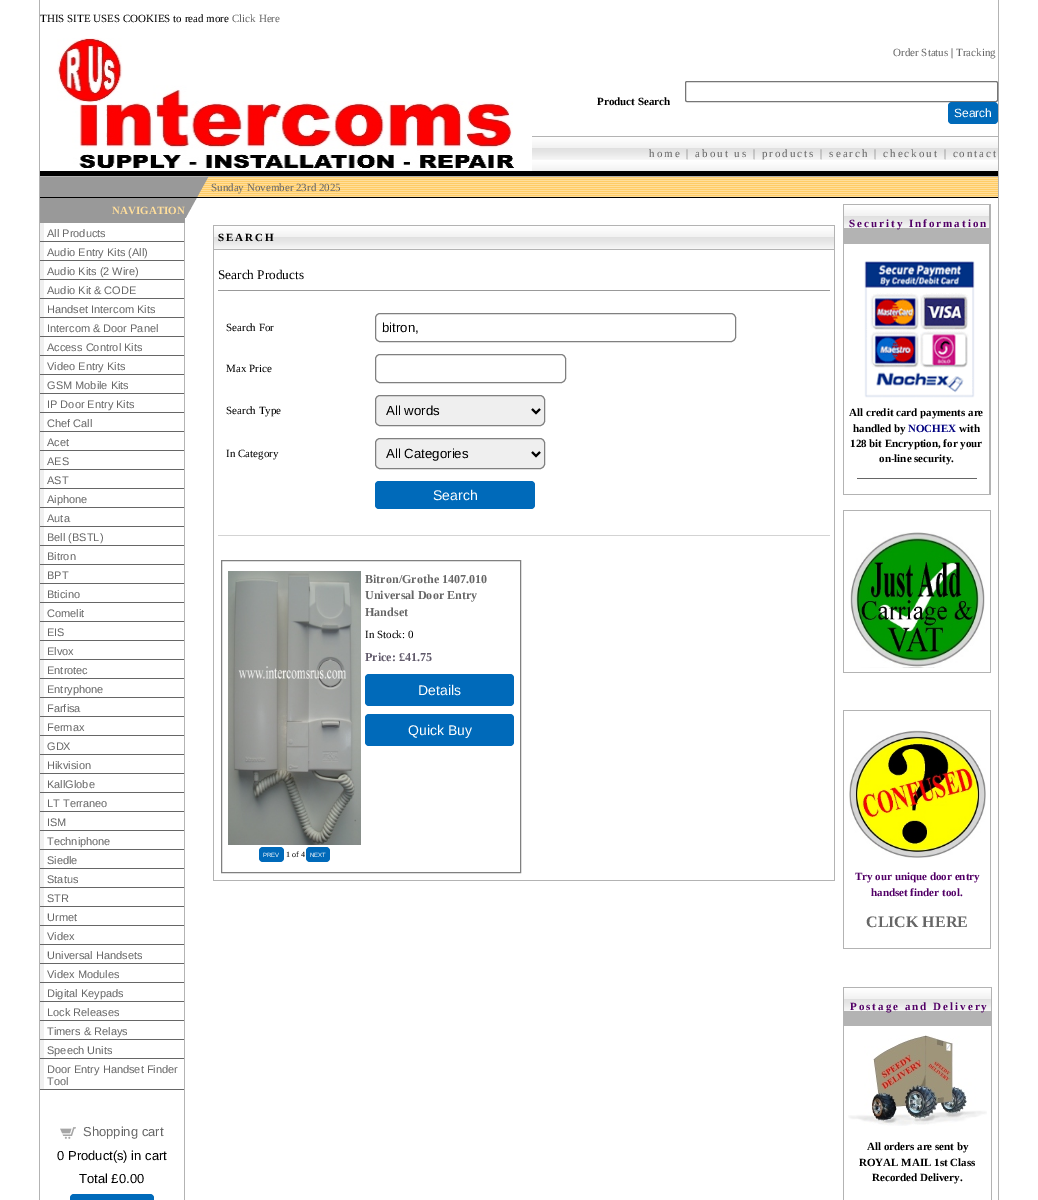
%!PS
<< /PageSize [1038 1200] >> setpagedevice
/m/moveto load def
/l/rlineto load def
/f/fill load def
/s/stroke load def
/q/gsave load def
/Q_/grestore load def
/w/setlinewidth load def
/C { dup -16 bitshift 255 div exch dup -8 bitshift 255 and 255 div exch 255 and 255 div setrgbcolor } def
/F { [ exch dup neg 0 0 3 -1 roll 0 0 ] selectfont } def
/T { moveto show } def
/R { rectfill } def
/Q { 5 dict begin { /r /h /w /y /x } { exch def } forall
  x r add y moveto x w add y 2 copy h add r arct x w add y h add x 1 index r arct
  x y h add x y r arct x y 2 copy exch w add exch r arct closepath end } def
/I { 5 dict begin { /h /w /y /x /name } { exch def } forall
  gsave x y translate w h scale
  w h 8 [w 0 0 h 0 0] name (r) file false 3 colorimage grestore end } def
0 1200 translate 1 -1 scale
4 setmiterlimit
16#FFFFFF C
0 0 1038 1200 R
16#B3B3B3 C
998 0 1 1200 R
39 176 960 1 R
39 0 1 1200 R
/LiberationSerif-Regular 11 F
16#000000 C
(THIS SITE USES COOKIES to read more) 40 22 T
16#666666 C
(Click Here) 232 22 T
(1.rgb) 57 38 457 130 I
(Order Status) 893 56 T
16#000000 C
(|) 951 56 T
16#666666 C
(Tracking) 956 56 T
/LiberationSerif-Bold 11 F
16#000000 C
(Product Search) 597 105 T
16#767676 C
685.5 81.5 312 20 1.5 Q s
16#006ABA C
948 102 50 22 4 Q f
/LiberationSans-Regular 12 F
16#FFFFFF C
(Search) 954 117 T
(2.rgb) 532 137 466 34 I
16#B3B3B3 C
532 136 466 1 R
/LiberationSerif-Regular 11 F
16#666666 C
649 157 m 2 0 (home | about us | products | search | checkout | contact) ashow
16#000000 C
40 171 958 5 R
16#999999 C
40 177 145 20 R
(3.rgb) 209 177 2 20 I
(4.rgb) 185 177 24 20 I
16#FFCC66 C
211 177 787 1 R
(5.rgb) 211 178 787 19 I
16#666666 C
(Sunday November 23rd 2025) 211 191 T
16#000000 C
40 197 958 1 R
16#999999 C
40 198 145 25 R
/LiberationSerif-Bold 11 F
16#FFDE9B C
(NAVIGATION) 112 214 T
(6.rgb) 185 198 12 20 I
16#B3B3B3 C
843 204 148 291 R
(7.rgb) 844 205 145 23 I
16#520066 C
849 227 m 2 0 (Security Information) ashow
16#FFFFFF C
844 244 145 250 R
(8.rgb) 864 261 111 137 I
16#000000 C
(All credit card payments are) 849 416 T
(handled by) 853 432 T
16#000080 C
(NOCHEX) 908 432 T
16#000000 C
(with) 959 432 T
(128 bit Encryption, for your) 850 447 T
(on-line security.) 879 462 T
16#666666 C
857 478 120 1 R
16#B3B3B3 C
843 510 148 163 R
16#FFFFFF C
844 511 146 161 R
(9.rgb) 850 532 135 136 I
16#B3B3B3 C
843 710 148 239 R
16#FFFFFF C
844 711 146 237 R
(10.rgb) 849 730 137 128 I
16#520066 C
(Try our unique door entry) 855 880 T
(handset finder tool.) 871 896 T
/LiberationSerif-Bold 16 F
16#666666 C
(CLICK HERE) 866 927 T
16#B3B3B3 C
843 987 149 213 R
(11.rgb) 844 988 147 23 I
/LiberationSerif-Bold 11 F
16#520066 C
850 1010 m 2 0 (Postage and Delivery) ashow
16#FFFFFF C
844 1026 147 174 R
(12.rgb) 848 1035 139 91 I
16#000000 C
(All orders are sent by) 867 1150 T
(ROYAL MAIL 1st Class) 859 1166 T
(Recorded Delivery.) 872 1181 T
16#B3B3B3 C
184 223 1 977 R
16#666666 C
40 241 144 1 R
16#F0F0F0 C
40 223 4 18 R
/LiberationSans-Regular 11 F
16#666666 C
(All Products) 47 237 T
40 260 144 1 R
16#F0F0F0 C
40 242 4 18 R
16#666666 C
(Audio Entry Kits \(All\)) 47 256 T
40 279 144 1 R
16#F0F0F0 C
40 261 4 18 R
16#666666 C
(Audio Kits \(2 Wire\)) 47 275 T
40 298 144 1 R
16#F0F0F0 C
40 280 4 18 R
16#666666 C
(Audio Kit & CODE) 47 294 T
40 317 144 1 R
16#F0F0F0 C
40 299 4 18 R
16#666666 C
(Handset Intercom Kits) 47 313 T
40 336 144 1 R
16#F0F0F0 C
40 318 4 18 R
16#666666 C
(Intercom & Door Panel) 47 332 T
40 355 144 1 R
16#F0F0F0 C
40 337 4 18 R
16#666666 C
(Access Control Kits) 47 351 T
40 374 144 1 R
16#F0F0F0 C
40 356 4 18 R
16#666666 C
(Video Entry Kits) 47 370 T
40 393 144 1 R
16#F0F0F0 C
40 375 4 18 R
16#666666 C
(GSM Mobile Kits) 47 389 T
40 412 144 1 R
16#F0F0F0 C
40 394 4 18 R
16#666666 C
(IP Door Entry Kits) 47 408 T
40 431 144 1 R
16#F0F0F0 C
40 413 4 18 R
16#666666 C
(Chef Call) 47 427 T
40 450 144 1 R
16#F0F0F0 C
40 432 4 18 R
16#666666 C
(Acet) 47 446 T
40 469 144 1 R
16#F0F0F0 C
40 451 4 18 R
16#666666 C
(AES) 47 465 T
40 488 144 1 R
16#F0F0F0 C
40 470 4 18 R
16#666666 C
(AST) 47 484 T
40 507 144 1 R
16#F0F0F0 C
40 489 4 18 R
16#666666 C
(Aiphone) 47 503 T
40 526 144 1 R
16#F0F0F0 C
40 508 4 18 R
16#666666 C
(Auta) 47 522 T
40 545 144 1 R
16#F0F0F0 C
40 527 4 18 R
16#666666 C
(Bell \(BSTL\)) 47 541 T
40 564 144 1 R
16#F0F0F0 C
40 546 4 18 R
16#666666 C
(Bitron) 47 560 T
40 583 144 1 R
16#F0F0F0 C
40 565 4 18 R
16#666666 C
(BPT) 47 579 T
40 602 144 1 R
16#F0F0F0 C
40 584 4 18 R
16#666666 C
(Bticino) 47 598 T
40 621 144 1 R
16#F0F0F0 C
40 603 4 18 R
16#666666 C
(Comelit) 47 617 T
40 640 144 1 R
16#F0F0F0 C
40 622 4 18 R
16#666666 C
(EIS) 47 636 T
40 659 144 1 R
16#F0F0F0 C
40 641 4 18 R
16#666666 C
(Elvox) 47 655 T
40 678 144 1 R
16#F0F0F0 C
40 660 4 18 R
16#666666 C
(Entrotec) 47 674 T
40 697 144 1 R
16#F0F0F0 C
40 679 4 18 R
16#666666 C
(Entryphone) 47 693 T
40 716 144 1 R
16#F0F0F0 C
40 698 4 18 R
16#666666 C
(Farfisa) 47 712 T
40 735 144 1 R
16#F0F0F0 C
40 717 4 18 R
16#666666 C
(Fermax) 47 731 T
40 754 144 1 R
16#F0F0F0 C
40 736 4 18 R
16#666666 C
(GDX) 47 750 T
40 773 144 1 R
16#F0F0F0 C
40 755 4 18 R
16#666666 C
(Hikvision) 47 769 T
40 792 144 1 R
16#F0F0F0 C
40 774 4 18 R
16#666666 C
(KallGlobe) 47 788 T
40 811 144 1 R
16#F0F0F0 C
40 793 4 18 R
16#666666 C
(LT Terraneo) 47 807 T
40 830 144 1 R
16#F0F0F0 C
40 812 4 18 R
16#666666 C
(ISM) 47 826 T
40 849 144 1 R
16#F0F0F0 C
40 831 4 18 R
16#666666 C
(Techniphone) 47 845 T
40 868 144 1 R
16#F0F0F0 C
40 850 4 18 R
16#666666 C
(Siedle) 47 864 T
40 887 144 1 R
16#F0F0F0 C
40 869 4 18 R
16#666666 C
(Status) 47 883 T
40 906 144 1 R
16#F0F0F0 C
40 888 4 18 R
16#666666 C
(STR) 47 902 T
40 925 144 1 R
16#F0F0F0 C
40 907 4 18 R
16#666666 C
(Urmet) 47 921 T
40 944 144 1 R
16#F0F0F0 C
40 926 4 18 R
16#666666 C
(Videx) 47 940 T
40 963 144 1 R
16#F0F0F0 C
40 945 4 18 R
16#666666 C
(Universal Handsets) 47 959 T
40 982 144 1 R
16#F0F0F0 C
40 964 4 18 R
16#666666 C
(Videx Modules) 47 978 T
40 1001 144 1 R
16#F0F0F0 C
40 983 4 18 R
16#666666 C
(Digital Keypads) 47 997 T
40 1020 144 1 R
16#F0F0F0 C
40 1002 4 18 R
16#666666 C
(Lock Releases) 47 1016 T
40 1039 144 1 R
16#F0F0F0 C
40 1021 4 18 R
16#666666 C
(Timers & Relays) 47 1035 T
40 1058 144 1 R
16#F0F0F0 C
40 1040 4 18 R
16#666666 C
(Speech Units) 47 1054 T
40 1089 144 1 R
16#F0F0F0 C
40 1059 4 30 R
16#666666 C
(Door Entry Handset Finder) 47 1073 T
(Tool) 47 1085 T
(13.rgb) 60 1127 16 12 I
/LiberationSans-Regular 13 F
(Shopping cart) 83 1136 T
16#000000 C
(0 Product\(s\) in cart) 57 1160 T
(Total £0.00) 79 1183 T
16#006ABA C
70 1194 84 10 4 Q f
16#B3B3B3 C
213 225 622 656 R
(14.rgb) 214 226 620 23 I
/LiberationSerif-Bold 11 F
16#000000 C
218 241 m 2 0 (SEARCH) ashow
16#FFFFFF C
214 250 620 630 R
16#999999 C
218 290 612 1 R
/LiberationSerif-Regular 13.25 F
16#000000 C
(Search Products) 218 279 T
/LiberationSerif-Regular 11 F
(Search For) 226 331 T
16#808080 C
375.5 313.5 360 28 4.5 Q s
/LiberationSans-Regular 13.25 F
16#000000 C
(bitron,) 382 332 T
/LiberationSerif-Regular 11 F
(Max Price) 226 372 T
16#808080 C
375.5 354.5 190 28 4.5 Q s
16#000000 C
(Search Type) 226 414 T
16#EFEFEF C
375.5 395.5 169 30 4.5 Q q f Q_
16#808080 C
s
16#000000 C
2 w
532 409 m 4 4 l 4 -4 l s
/LiberationSans-Regular 13.25 F
(All words) 386 415 T
/LiberationSerif-Regular 11 F
(In Category) 226 457 T
16#EFEFEF C
375.5 438.5 169 30 4.5 Q q f Q_
16#808080 C
1 w
s
16#000000 C
2 w
532 452 m 4 4 l 4 -4 l s
/LiberationSans-Regular 13.25 F
(All Categories) 386 458 T
16#006ABA C
375 481 160 28 4 Q f
/LiberationSans-Regular 14 F
16#FFFFFF C
(Search) 433 500 T
16#D3D3D3 C
218 535 612 1 R
16#808080 C
1 w
221.5 560.5 299 312 rectstroke
/LiberationSerif-Bold 12.1 F
16#666666 C
(Bitron/Grothe 1407.010) 365 583 T
(Universal Door Entry) 365 599 T
(Handset) 365 616 T
/LiberationSerif-Regular 11 F
16#000000 C
(In Stock: 0) 365 638 T
/LiberationSerif-Bold 12.1 F
16#60596A C
(Price: £41.75) 365 661 T
16#006ABA C
365 674 149 32 4 Q f
/LiberationSans-Regular 14 F
16#FFFFFF C
(Details) 418 695 T
16#006ABA C
365 714 149 32 4 Q f
16#FFFFFF C
(Quick Buy) 408 735 T
(15.rgb) 228 571 133 274 I
16#006ABA C
259 847 25 15 4 Q f
/LiberationSans-Regular 6 F
16#FFFFFF C
(PREV) 263 857 T
/LiberationSerif-Regular 8 F
16#000000 C
(1 of 4) 286 857 T
16#006ABA C
306 847 24 15 4 Q f
/LiberationSans-Regular 6 F
16#FFFFFF C
(NEXT) 310 857 T
showpage
